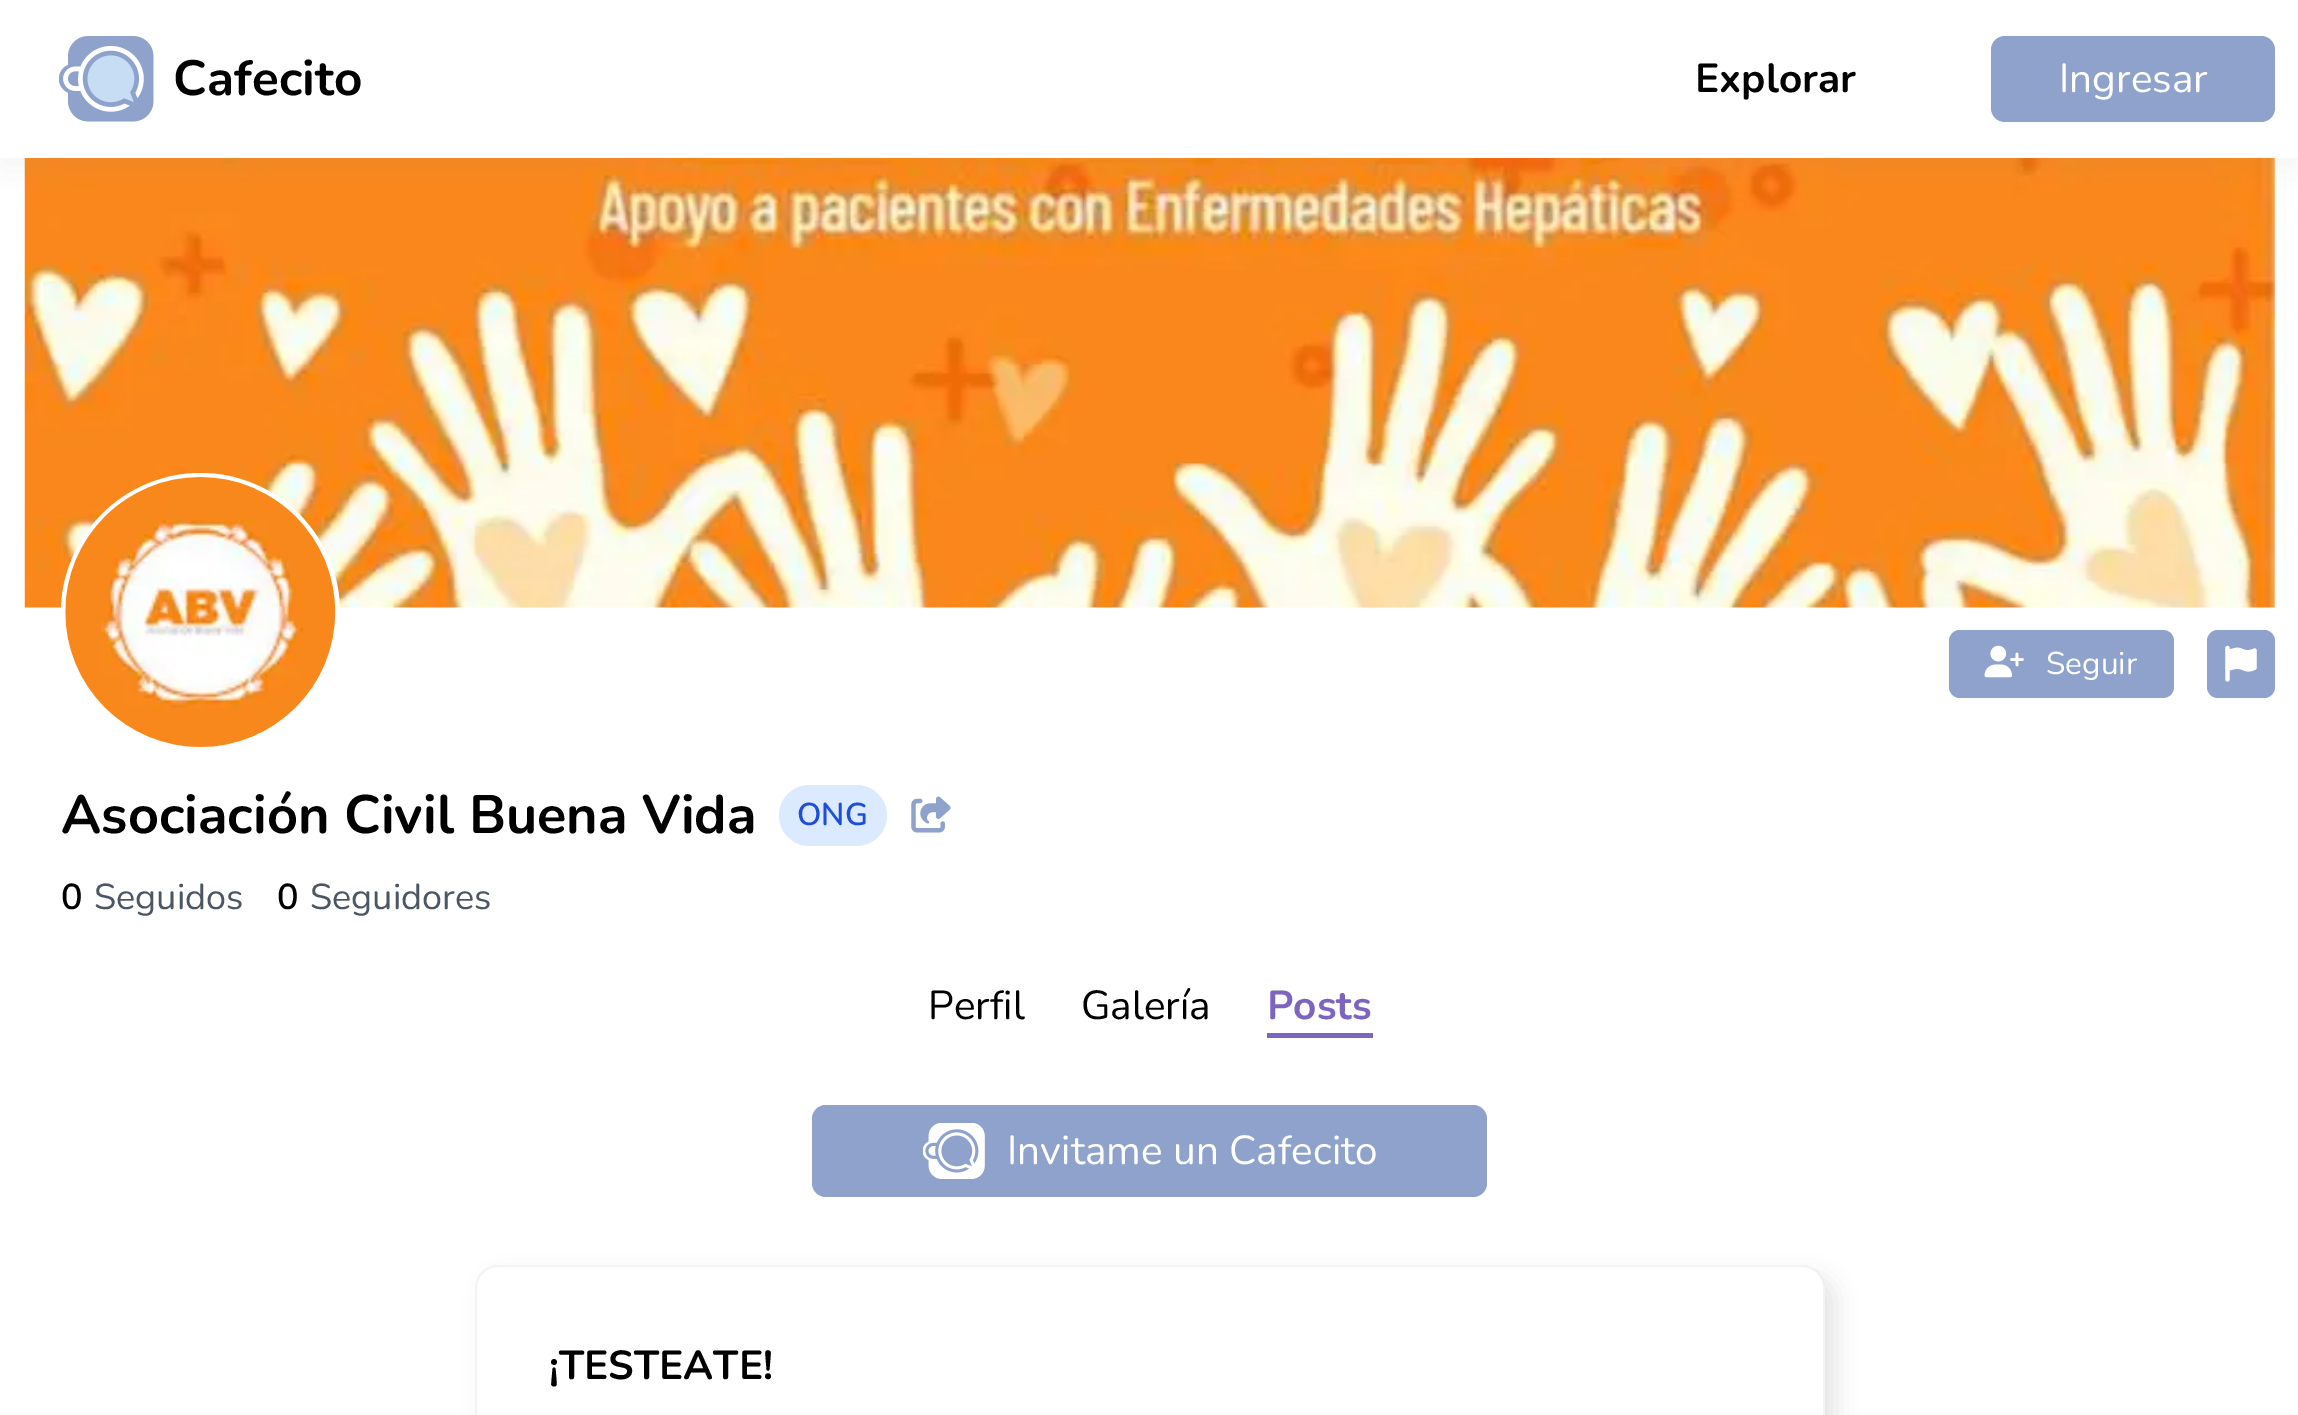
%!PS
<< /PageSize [2298 1415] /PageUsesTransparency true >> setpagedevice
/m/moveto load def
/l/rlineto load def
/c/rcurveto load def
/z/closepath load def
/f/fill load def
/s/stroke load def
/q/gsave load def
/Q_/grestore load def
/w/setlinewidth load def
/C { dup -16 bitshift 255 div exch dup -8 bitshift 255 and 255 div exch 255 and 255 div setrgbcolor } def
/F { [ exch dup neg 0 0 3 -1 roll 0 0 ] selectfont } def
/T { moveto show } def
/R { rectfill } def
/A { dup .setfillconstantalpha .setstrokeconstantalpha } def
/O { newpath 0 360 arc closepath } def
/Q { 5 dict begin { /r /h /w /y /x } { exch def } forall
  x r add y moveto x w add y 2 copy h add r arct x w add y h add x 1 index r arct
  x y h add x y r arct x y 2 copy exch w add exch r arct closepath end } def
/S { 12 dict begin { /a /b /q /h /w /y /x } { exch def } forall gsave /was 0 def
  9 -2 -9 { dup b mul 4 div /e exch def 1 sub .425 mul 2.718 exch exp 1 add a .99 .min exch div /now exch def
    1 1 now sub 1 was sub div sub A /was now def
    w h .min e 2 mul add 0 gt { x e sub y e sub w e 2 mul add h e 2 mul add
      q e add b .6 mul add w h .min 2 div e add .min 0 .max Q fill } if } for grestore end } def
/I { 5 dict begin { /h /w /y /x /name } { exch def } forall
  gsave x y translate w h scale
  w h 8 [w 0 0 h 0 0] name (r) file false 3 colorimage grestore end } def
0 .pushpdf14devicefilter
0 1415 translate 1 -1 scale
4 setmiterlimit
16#FFFFFF C
0 0 2298 1415 R
(2.rgb) 24 158 2251 450 I
16#808080 C
0 11 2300 158 0 17 .1 S
16#FFFFFF C
0 0 2298 158 R
(1.rgb) 59 36 95 86 I
/Nunito-Bold 49.5 F
16#000000 C
(Cafecito) 173 95 T
/Nunito-Bold 40.5 F
(Explorar) 1695 92 T
16#8FA2CC C
1991 36 284 86 14 Q f
/Nunito-Regular 40.5 F
16#FFFFFF C
(Ingresar) 2059 92 T
200.5 612.5 139.5 O f
(3.rgb) 65 477 271 270 I
16#8FA2CC C
1949 630 225 68 11 Q f
(4.rgb) 1984 645 40 33 I
/Nunito-Regular 31.5 F
16#FFFFFF C
(Seguir) 2046 674 T
16#8FA2CC C
2207 630 68 68 11 Q f
(5.rgb) 2225 645 32 37 I
/Nunito-Bold 54 F
16#000000 C
(Asociación Civil Buena Vida) 61 833 T
16#DBEAFE C
779 785 108 61 30.5 Q f
/Nunito-SemiBold 31.5 F
16#1D4ED8 C
(ONG) 797 825 T
(6.rgb) 911 796 40 37 I
/Nunito-SemiBold 36 F
16#000000 C
(0) 61 909 T
/Nunito-Regular 36 F
16#4B5563 C
(Seguidos) 94 909 T
/Nunito-SemiBold 36 F
16#000000 C
(0) 277 909 T
/Nunito-Regular 36 F
16#4B5563 C
(Seguidores) 310 909 T
/Nunito-Regular 40.5 F
16#000000 C
(Perfil) 928 1019 T
(Galería) 1081 1019 T
/Nunito-Bold 40.5 F
16#7C64BF C
(Posts) 1267 1019 T
1267 1033 106 5 R
16#8FA2CC C
812 1105 675 92 14 Q f
(7.rgb) 923 1123 62 56 I
/Nunito-Regular 40.5 F
16#FFFFFF C
(Invitame un Cafecito) 1007 1164 T
q
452 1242 m 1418 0 l 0 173 l -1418 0 l z 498 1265 m 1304 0 l 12.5 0 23 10.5 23 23 c 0 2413 l 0 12.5 -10.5 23 -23 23 c -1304 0 l -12.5 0 -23 -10.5 -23 -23 c 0 -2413 l 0 -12.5 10.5 -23 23 -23 c z eoclip newpath
16#000000 C
486 1276 1350 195 23 11 .1 S
Q_
0.3 A
16#DCDCDC C
2 w
476 1266 1348 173 22 Q s
/Nunito-Bold 40.5 F
1 A
16#000000 C
(¡TESTEATE!) 549 1379 T
.poppdf14devicefilter showpage
